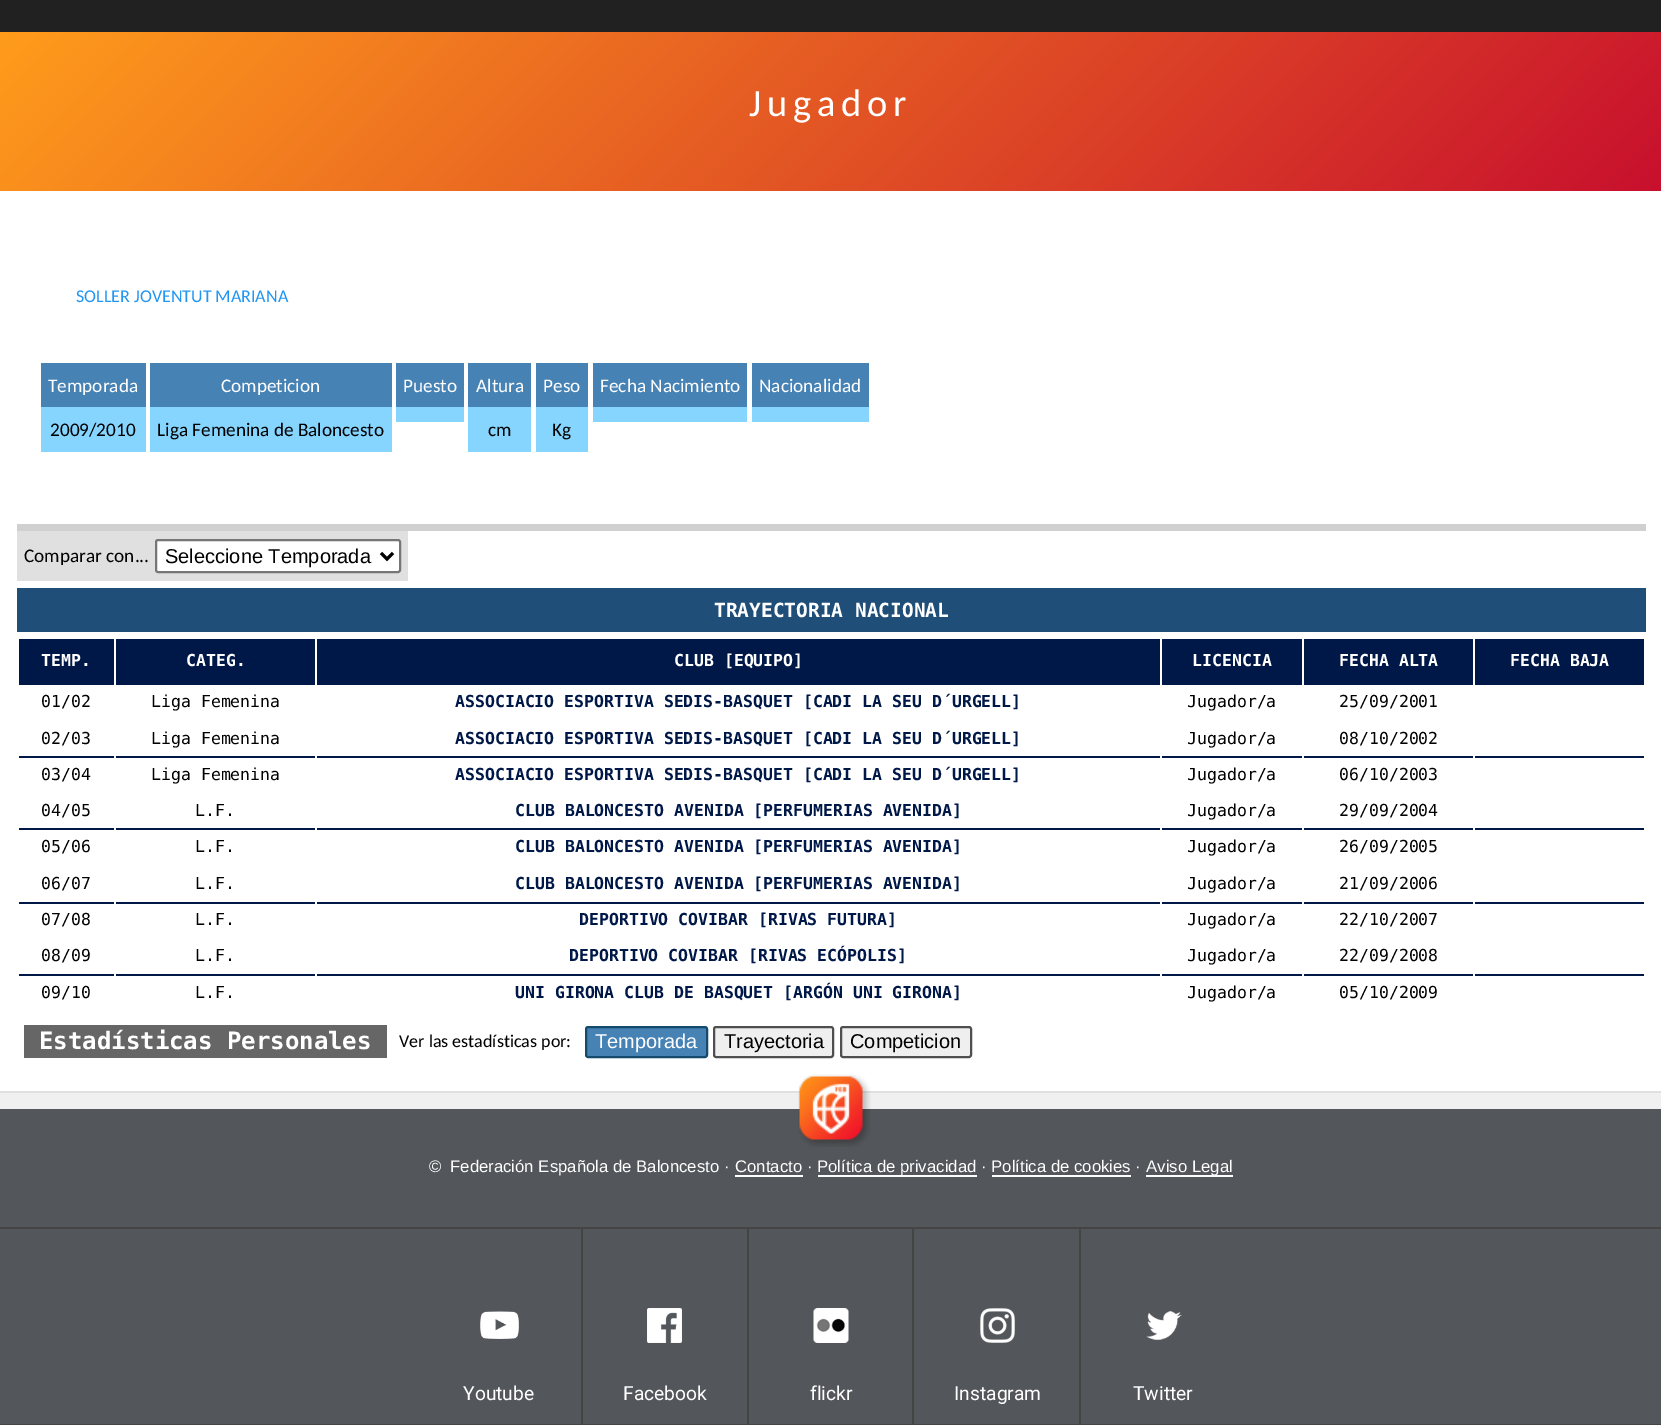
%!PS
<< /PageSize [1661 1425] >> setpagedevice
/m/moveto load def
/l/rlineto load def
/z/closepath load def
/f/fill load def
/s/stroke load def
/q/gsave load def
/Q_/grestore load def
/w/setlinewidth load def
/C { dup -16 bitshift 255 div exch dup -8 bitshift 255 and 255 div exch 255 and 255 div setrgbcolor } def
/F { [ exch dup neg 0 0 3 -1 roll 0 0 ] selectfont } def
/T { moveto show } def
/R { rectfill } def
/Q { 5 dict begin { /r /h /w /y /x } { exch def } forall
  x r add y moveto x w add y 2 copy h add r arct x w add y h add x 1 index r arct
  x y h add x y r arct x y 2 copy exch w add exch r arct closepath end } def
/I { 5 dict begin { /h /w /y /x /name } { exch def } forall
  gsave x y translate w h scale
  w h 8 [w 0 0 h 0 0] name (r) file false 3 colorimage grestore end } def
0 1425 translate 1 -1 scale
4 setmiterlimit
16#53565A C
0 0 1661 1425 R
16#212121 C
0 0 1661 32 R
16#FFFFFF C
0 191 1661 900 R
q 0 32 m 1661 0 l 0 159 l -1661 0 l z clip newpath
<< /ShadingType 2 /ColorSpace /DeviceRGB /Coords [376 -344 1286 566] /Extend [true true] /Function << /FunctionType 2 /Domain [0 1] /C0 [1 .612 .106] /C1 [.784 .063 .18] /N 1 >> >> shfill Q_
/Carlito-Regular 38.5 F
749 116 m 5.75 0 (Jugador) ashow
16#D0D0D0 C
17 524 1629 7 R
/Carlito-Regular 18 F
16#2196F3 C
(SOLLER JOVENTUT MARIANA) 76 302 T
16#4682B4 C
41 363 105 44 R
/Carlito-Regular 19.25 F
16#FFFFFF C
(Temporada) 48 392 T
16#85D5FF C
41 407 105 45 R
16#000000 C
(2009/2010) 50 436 T
16#4682B4 C
150 363 242 44 R
16#FFFFFF C
(Competicion) 221 392 T
16#85D5FF C
150 407 242 45 R
16#000000 C
(Liga Femenina de Baloncesto) 157 436 T
16#4682B4 C
396 363 68 44 R
16#FFFFFF C
(Puesto) 403 392 T
16#85D5FF C
396 407 68 15 R
16#4682B4 C
468 363 63 44 R
16#FFFFFF C
(Altura) 476 392 T
16#85D5FF C
468 407 63 45 R
16#000000 C
(cm) 488 436 T
16#4682B4 C
536 363 52 44 R
16#FFFFFF C
(Peso) 543 392 T
16#85D5FF C
536 407 52 45 R
16#000000 C
(Kg) 552 436 T
16#4682B4 C
593 363 154 44 R
16#FFFFFF C
(Fecha Nacimiento) 600 392 T
16#85D5FF C
593 407 154 15 R
16#4682B4 C
752 363 117 44 R
16#FFFFFF C
(Nacionalidad) 759 392 T
16#85D5FF C
752 407 117 15 R
16#E0E0E0 C
17 531 391 50 R
16#000000 C
(Comparar con...) 24 562 T
16#FFFFFF C
156 540 244 32 2 Q q f Q_
16#767676 C
2 w
s
16#000000 C
3 w
381 553 m 6 6 l 6 -6 l s
/LiberationSans-Regular 20 F
(Seleccione Temporada) 165 563 T
16#1F4E78 C
17 588 1629 44 R
/DejaVuSansMono-Bold 19.5 F
16#FFFFFF C
(TRAYECTORIA NACIONAL) 714 617 T
16#001848 C
19 639 95 44 R
/DejaVuSansMono-Bold 16.5 F
16#FFFFFF C
(TEMP.) 41 666 T
16#001848 C
116 639 199 44 R
16#FFFFFF C
(CATEG.) 186 666 T
16#001848 C
317 639 843 44 R
16#FFFFFF C
(CLUB [EQUIPO]) 674 666 T
16#001848 C
1162 639 140 44 R
16#FFFFFF C
(LICENCIA) 1192 666 T
16#001848 C
1304 639 169 44 R
16#FFFFFF C
(FECHA ALTA) 1339 666 T
16#001848 C
1475 639 169 44 R
16#FFFFFF C
(FECHA BAJA) 1510 666 T
16#001848 C
17 683 1629 2 R
16#FFFFFF C
1644 683 2 2 R
114 683 2 2 R
17 683 2 2 R
/DejaVuSansMono-Regular 16.5 F
16#000000 C
(01/02) 41 707 T
16#FFFFFF C
315 683 2 2 R
16#000000 C
(Liga Femenina) 151 707 T
16#FFFFFF C
1160 683 2 2 R
/DejaVuSansMono-Bold 16.5 F
16#001848 C
(ASSOCIACIO ESPORTIVA SEDIS-BASQUET [CADI LA SEU D´URGELL]) 455 707 T
16#FFFFFF C
1302 683 2 2 R
/DejaVuSansMono-Regular 16.5 F
16#000000 C
(Jugador/a) 1187 707 T
16#FFFFFF C
1473 683 2 2 R
16#000000 C
(25/09/2001) 1339 707 T
(02/03) 41 744 T
(Liga Femenina) 151 744 T
/DejaVuSansMono-Bold 16.5 F
16#001848 C
(ASSOCIACIO ESPORTIVA SEDIS-BASQUET [CADI LA SEU D´URGELL]) 455 744 T
/DejaVuSansMono-Regular 16.5 F
16#000000 C
(Jugador/a) 1187 744 T
(08/10/2002) 1339 744 T
16#001848 C
17 756 1629 2 R
16#FFFFFF C
1644 756 2 2 R
114 756 2 2 R
17 756 2 2 R
16#000000 C
(03/04) 41 780 T
16#FFFFFF C
315 756 2 2 R
16#000000 C
(Liga Femenina) 151 780 T
16#FFFFFF C
1160 756 2 2 R
/DejaVuSansMono-Bold 16.5 F
16#001848 C
(ASSOCIACIO ESPORTIVA SEDIS-BASQUET [CADI LA SEU D´URGELL]) 455 780 T
16#FFFFFF C
1302 756 2 2 R
/DejaVuSansMono-Regular 16.5 F
16#000000 C
(Jugador/a) 1187 780 T
16#FFFFFF C
1473 756 2 2 R
16#000000 C
(06/10/2003) 1339 780 T
(04/05) 41 816 T
(L.F.) 195 816 T
/DejaVuSansMono-Bold 16.5 F
16#001848 C
(CLUB BALONCESTO AVENIDA [PERFUMERIAS AVENIDA]) 515 816 T
/DejaVuSansMono-Regular 16.5 F
16#000000 C
(Jugador/a) 1187 816 T
(29/09/2004) 1339 816 T
16#001848 C
17 828 1629 2 R
16#FFFFFF C
1644 828 2 2 R
114 828 2 2 R
17 828 2 2 R
16#000000 C
(05/06) 41 852 T
16#FFFFFF C
315 828 2 2 R
16#000000 C
(L.F.) 195 852 T
16#FFFFFF C
1160 828 2 2 R
/DejaVuSansMono-Bold 16.5 F
16#001848 C
(CLUB BALONCESTO AVENIDA [PERFUMERIAS AVENIDA]) 515 852 T
16#FFFFFF C
1302 828 2 2 R
/DejaVuSansMono-Regular 16.5 F
16#000000 C
(Jugador/a) 1187 852 T
16#FFFFFF C
1473 828 2 2 R
16#000000 C
(26/09/2005) 1339 852 T
(06/07) 41 889 T
(L.F.) 195 889 T
/DejaVuSansMono-Bold 16.5 F
16#001848 C
(CLUB BALONCESTO AVENIDA [PERFUMERIAS AVENIDA]) 515 889 T
/DejaVuSansMono-Regular 16.5 F
16#000000 C
(Jugador/a) 1187 889 T
(21/09/2006) 1339 889 T
16#001848 C
17 902 1629 2 R
16#FFFFFF C
1644 902 2 2 R
114 902 2 2 R
17 902 2 2 R
16#000000 C
(07/08) 41 925 T
16#FFFFFF C
315 902 2 2 R
16#000000 C
(L.F.) 195 925 T
16#FFFFFF C
1160 902 2 2 R
/DejaVuSansMono-Bold 16.5 F
16#001848 C
(DEPORTIVO COVIBAR [RIVAS FUTURA]) 579 925 T
16#FFFFFF C
1302 902 2 2 R
/DejaVuSansMono-Regular 16.5 F
16#000000 C
(Jugador/a) 1187 925 T
16#FFFFFF C
1473 902 2 2 R
16#000000 C
(22/10/2007) 1339 925 T
(08/09) 41 961 T
(L.F.) 195 961 T
/DejaVuSansMono-Bold 16.5 F
16#001848 C
(DEPORTIVO COVIBAR [RIVAS ECÓPOLIS]) 569 961 T
/DejaVuSansMono-Regular 16.5 F
16#000000 C
(Jugador/a) 1187 961 T
(22/09/2008) 1339 961 T
16#001848 C
17 974 1629 2 R
16#FFFFFF C
1644 974 2 2 R
114 974 2 2 R
17 974 2 2 R
16#000000 C
(09/10) 41 998 T
16#FFFFFF C
315 974 2 2 R
16#000000 C
(L.F.) 195 998 T
16#FFFFFF C
1160 974 2 2 R
/DejaVuSansMono-Bold 16.5 F
16#001848 C
(UNI GIRONA CLUB DE BASQUET [ARGÓN UNI GIRONA]) 515 998 T
16#FFFFFF C
1302 974 2 2 R
/DejaVuSansMono-Regular 16.5 F
16#000000 C
(Jugador/a) 1187 998 T
16#FFFFFF C
1473 974 2 2 R
16#000000 C
(05/10/2009) 1339 998 T
16#666666 C
24 1025 363 33 R
/DejaVuSansMono-Bold 24 F
16#FFFFFF C
(Estadísticas Personales) 39 1049 T
/Carlito-Regular 18 F
16#000000 C
(Ver las estadísticas por:) 399 1047 T
16#4682B4 C
586 1027 121 30 2 Q q f Q_
16#144A6B C
2 w
s
/LiberationSans-Regular 20 F
16#FFFFFF C
(Temporada) 595 1048 T
16#EFEFEF C
714 1027 119 30 2 Q q f Q_
16#4F4F4F C
s
16#000000 C
(Trayectoria) 724 1048 T
16#EFEFEF C
841 1027 130 30 2 Q q f Q_
16#4F4F4F C
s
16#000000 C
(Competicion) 850 1048 T
16#F0F0F0 C
0 1093 1661 16 R
16#E0E0E0 C
0 1091 1661 2 R
(1.rgb) 798 1074 73 73 I
/LiberationSans-Regular 16.75 F
16#FFFFFF C
(©) 429 1172 T
(Federación Española de Baloncesto ·) 450 1172 T
(Contacto ·) 735 1172 T
735 1175 68 2 R
818 1175 159 2 R
(Política de privacidad · Política de cookies ·) 817 1172 T
1146 1175 87 2 R
(Aviso Legal) 1146 1172 T
992 1175 139 2 R
16#444444 C
0 1227 1661 2 R
0 1424 1661 1 R
(2.rgb) 480 1311 39 28 I
/Roboto-Regular 19.25 F
16#FFFFFF C
(Youtube) 463 1400 T
(3.rgb) 647 1308 35 35 I
16#444444 C
581 1229 2 195 R
16#FFFFFF C
(Facebook) 623 1400 T
(4.rgb) 813 1308 36 35 I
16#444444 C
747 1229 2 195 R
16#FFFFFF C
(flickr) 810 1400 T
(5.rgb) 980 1308 35 35 I
16#444444 C
912 1229 2 195 R
16#FFFFFF C
(Instagram) 954 1400 T
(6.rgb) 1146 1311 36 29 I
16#444444 C
1079 1229 2 195 R
16#FFFFFF C
(Twitter) 1133 1400 T
showpage
